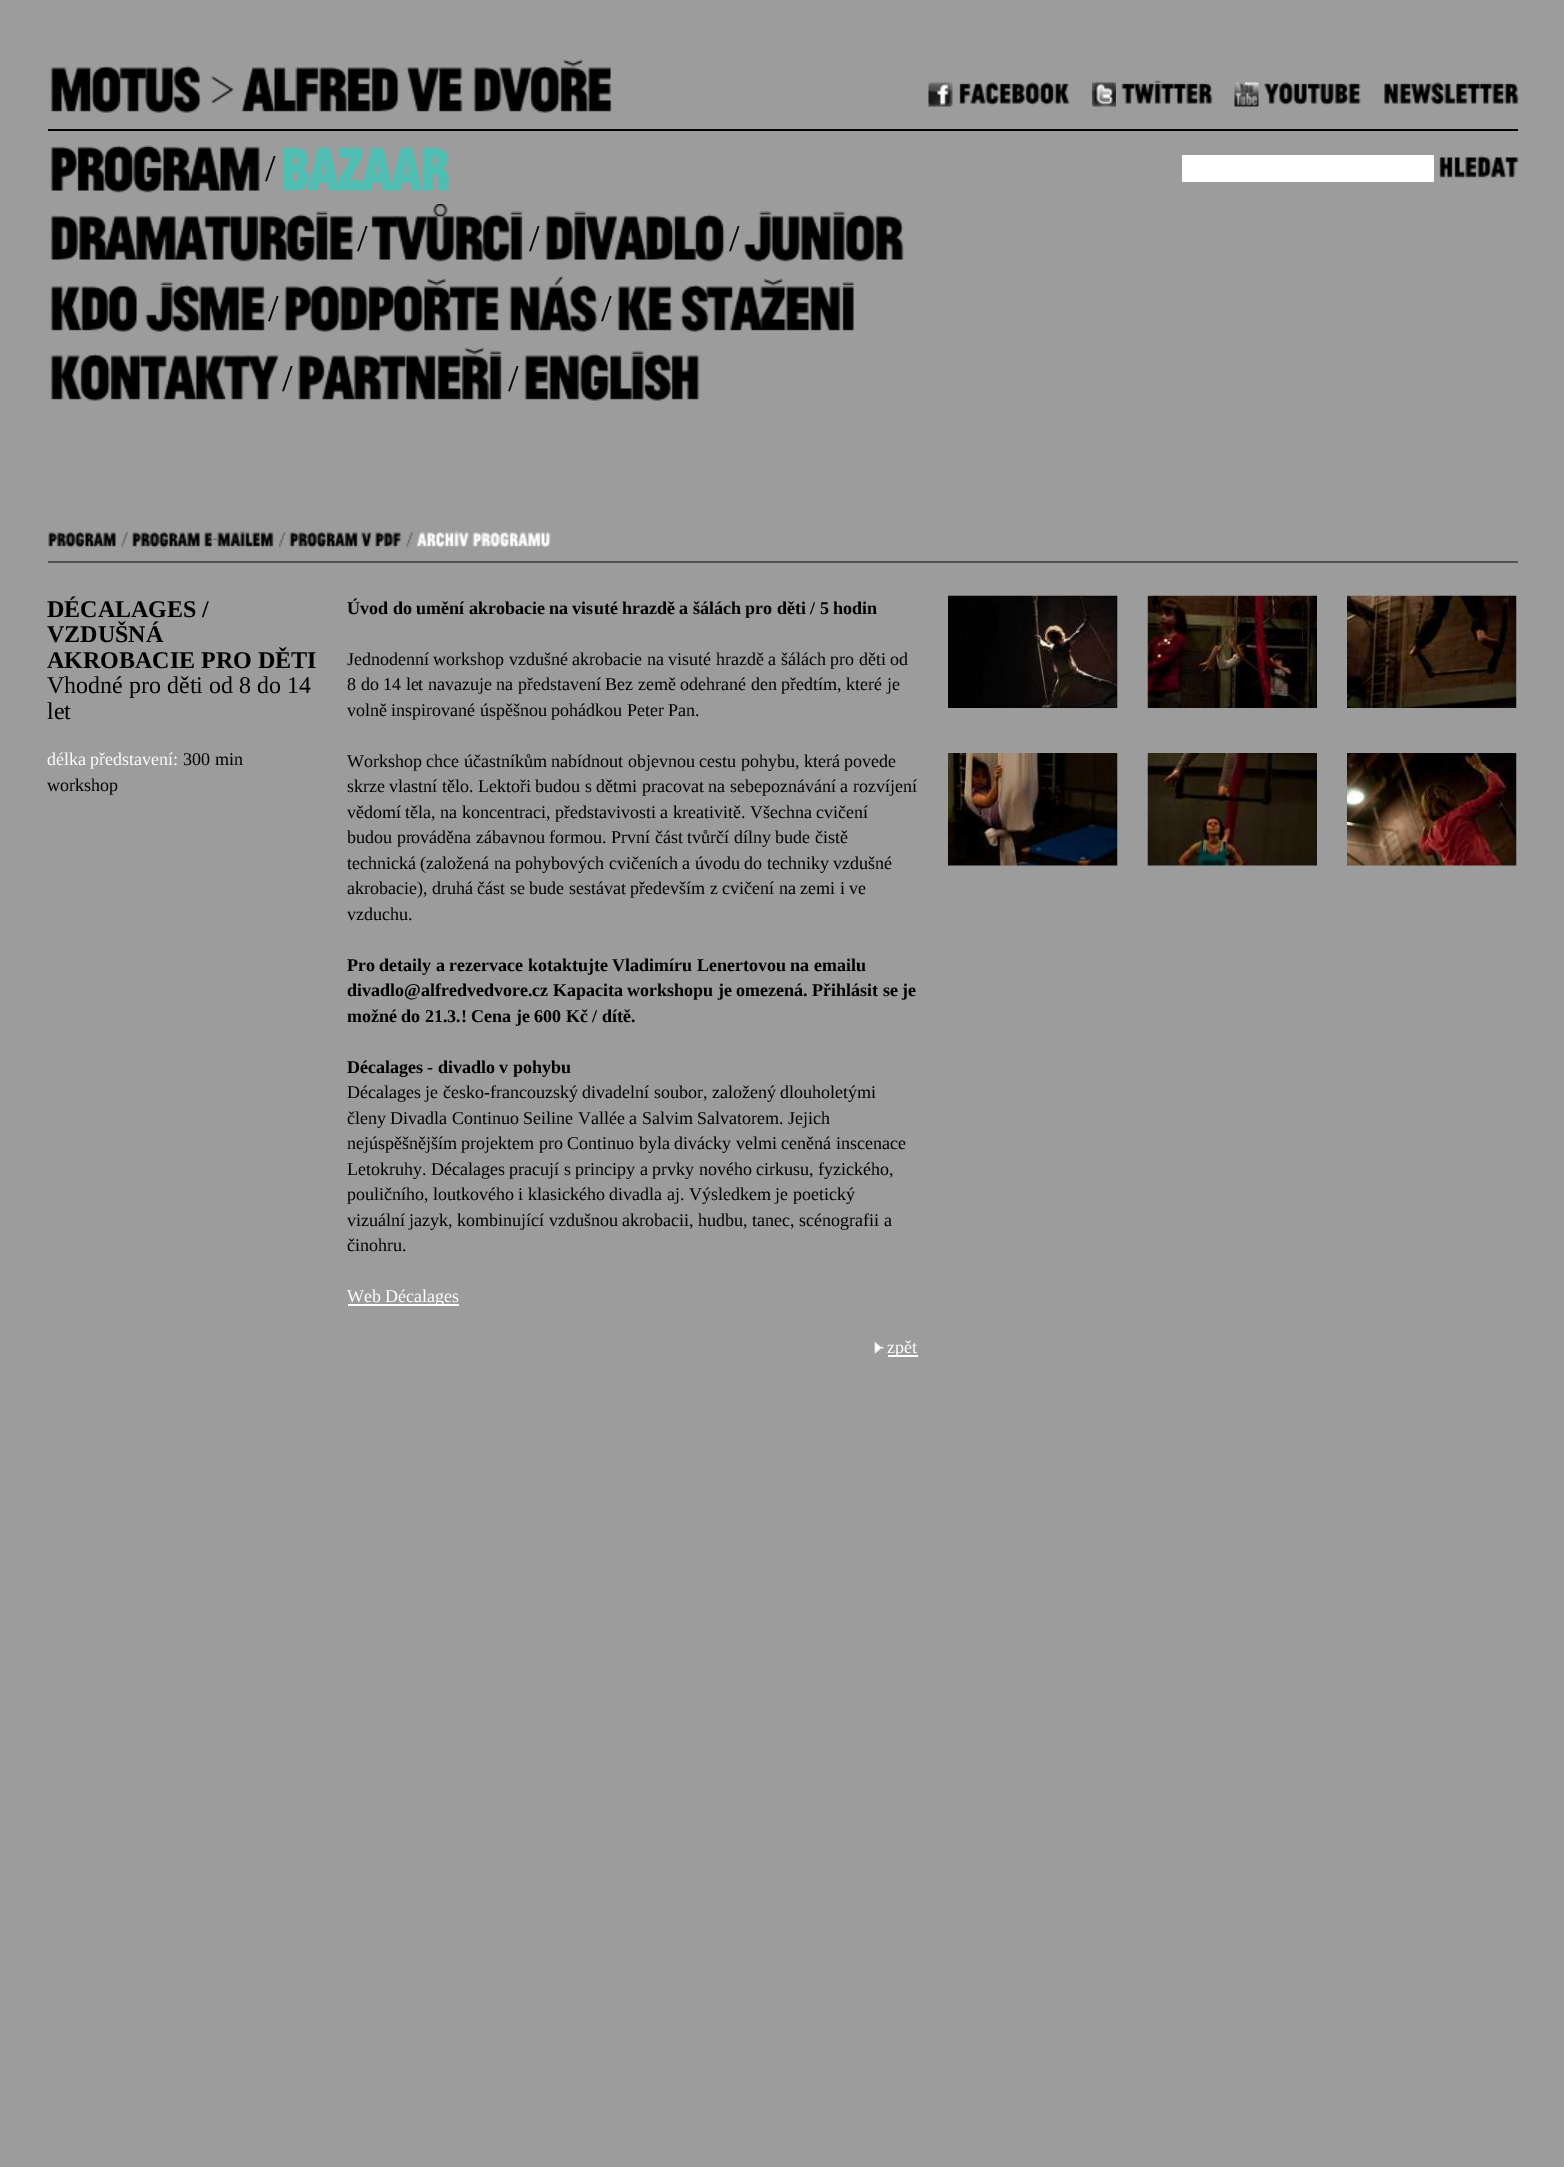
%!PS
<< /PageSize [1564 2167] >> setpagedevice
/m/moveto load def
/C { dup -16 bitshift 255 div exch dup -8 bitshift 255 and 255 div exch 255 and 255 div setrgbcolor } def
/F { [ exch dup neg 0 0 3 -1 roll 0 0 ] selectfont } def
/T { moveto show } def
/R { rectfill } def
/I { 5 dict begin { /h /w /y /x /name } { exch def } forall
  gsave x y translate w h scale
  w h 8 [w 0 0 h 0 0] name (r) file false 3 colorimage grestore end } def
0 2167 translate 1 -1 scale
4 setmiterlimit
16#9D9C9C C
0 0 1564 2167 R
16#000000 C
48 129 1470 2 R
(1.rgb) 50 65 151 48 I
(2.rgb) 211 76 23 28 I
(3.rgb) 241 67 158 45 I
(4.rgb) 406 67 57 45 I
(5.rgb) 473 59 139 54 I
(6.rgb) 928 82 25 25 I
(7.rgb) 959 82 111 24 I
(8.rgb) 1092 82 24 25 I
(9.rgb) 1121 80 92 24 I
(10.rgb) 1234 82 25 25 I
(11.rgb) 1264 82 97 24 I
(12.rgb) 1384 82 135 24 I
(13.rgb) 50 145 210 48 I
/LiberationSerif-Regular 38 F
265 181 m -3 0 (/) ashow
(14.rgb) 281 146 168 45 I
(15.rgb) 50 211 303 51 I
357 251 m -3 0 (/) ashow
(16.rgb) 371 204 152 58 I
529 251 m -3 0 (/) ashow
(17.rgb) 545 211 180 51 I
729 251 m -3 0 (/) ashow
(18.rgb) 744 211 160 51 I
(19.rgb) 50 285 88 47 I
(20.rgb) 145 281 120 51 I
268 321 m -3 0 (/) ashow
(21.rgb) 284 278 215 54 I
(22.rgb) 509 275 89 57 I
601 321 m -3 0 (/) ashow
(23.rgb) 617 286 56 45 I
(24.rgb) 680 278 174 54 I
(25.rgb) 50 354 230 47 I
282 391 m -3 0 (/) ashow
(26.rgb) 298 347 204 53 I
508 391 m -3 0 (/) ashow
(27.rgb) 524 350 176 51 I
16#FFFFFF C
1182 155 252 27 R
(28.rgb) 1439 155 80 23 I
16#525254 C
48 561 1470 2 R
(29.rgb) 48 532 68 16 I
(30.rgb) 121 532 7 16 I
(29.rgb) 132 532 68 16 I
(31.rgb) 204 530 70 17 I
(32.rgb) 279 532 7 16 I
(33.rgb) 289 532 69 16 I
(34.rgb) 361 532 11 15 I
(35.rgb) 375 532 26 15 I
(30.rgb) 406 532 7 16 I
(36.rgb) 417 531 52 17 I
(37.rgb) 472 532 79 16 I
/LiberationSerif-Bold 24 F
16#000000 C
(DÉCALAGES /) 47 617 T
(VZDUŠNÁ) 47 642 T
(AKROBACIE PRO DĚTI) 47 668 T
/LiberationSerif-Regular 24 F
(Vhodné pro děti od 8 do 14) 47 693 T
(let) 47 719 T
/LiberationSerif-Regular 18 F
16#FFFFFF C
(délka představení:) 47 765 T
16#000000 C
(300 min) 183 765 T
(workshop) 47 791 T
/LiberationSerif-Bold 18 F
(Úvod do umění akrobacie na visuté hrazdě a šálách pro děti / 5 hodin) 347 614 T
/LiberationSerif-Regular 18 F
(Jednodenní workshop vzdušné akrobacie na visuté hrazdě a šálách pro děti od) 347 665 T
(8 do 14 let navazuje na představení Bez země odehrané den předtím, které je) 347 690 T
(volně inspirované úspěšnou pohádkou Peter Pan.) 347 716 T
(Workshop chce účastníkům nabídnout objevnou cestu pohybu, která povede) 347 767 T
(skrze vlastní tělo. Lektoři budou s dětmi pracovat na sebepoznávání a rozvíjení) 347 792 T
(vědomí těla, na koncentraci, představivosti a kreativitě. Všechna cvičení) 347 818 T
(budou prováděna zábavnou formou. První část tvůrčí dílny bude čistě) 347 843 T
(technická \(založená na pohybových cvičeních a úvodu do techniky vzdušné) 347 869 T
(akrobacie\), druhá část se bude sestávat především z cvičení na zemi i ve) 347 894 T
(vzduchu.) 347 920 T
/LiberationSerif-Bold 18 F
(Pro detaily a rezervace kotaktujte Vladimíru Lenertovou na emailu) 347 971 T
(divadlo@alfredvedvore.cz Kapacita workshopu je omezená. Přihlásit se je) 347 996 T
(možné do 21.3.! Cena je 600 Kč / dítě.) 347 1022 T
(Décalages - divadlo v pohybu) 347 1073 T
/LiberationSerif-Regular 18 F
(Décalages je česko-francouzský divadelní soubor, založený dlouholetými) 347 1098 T
(členy Divadla Continuo Seiline Vallée a Salvim Salvatorem. Jejich) 347 1124 T
(nejúspěšnějším projektem pro Continuo byla divácky velmi ceněná inscenace) 347 1149 T
(Letokruhy. Décalages pracují s principy a prvky nového cirkusu, fyzického,) 347 1175 T
(pouličního, loutkového i klasického divadla aj. Výsledkem je poetický) 347 1200 T
(vizuální jazyk, kombinující vzdušnou akrobacii, hudbu, tanec, scénografii a) 347 1226 T
(činohru.) 347 1251 T
16#FFFFFF C
348 1304 111 2 R
(Web Décalages) 347 1302 T
(38.rgb) 874 1342 10 12 I
888 1355 30 2 R
(zpět) 887 1353 T
(39.rgb) 948 595 170 113 I
(40.rgb) 1147 595 170 113 I
(41.rgb) 1347 595 170 113 I
(42.rgb) 948 753 170 113 I
(43.rgb) 1147 753 170 113 I
(44.rgb) 1347 753 170 113 I
showpage
